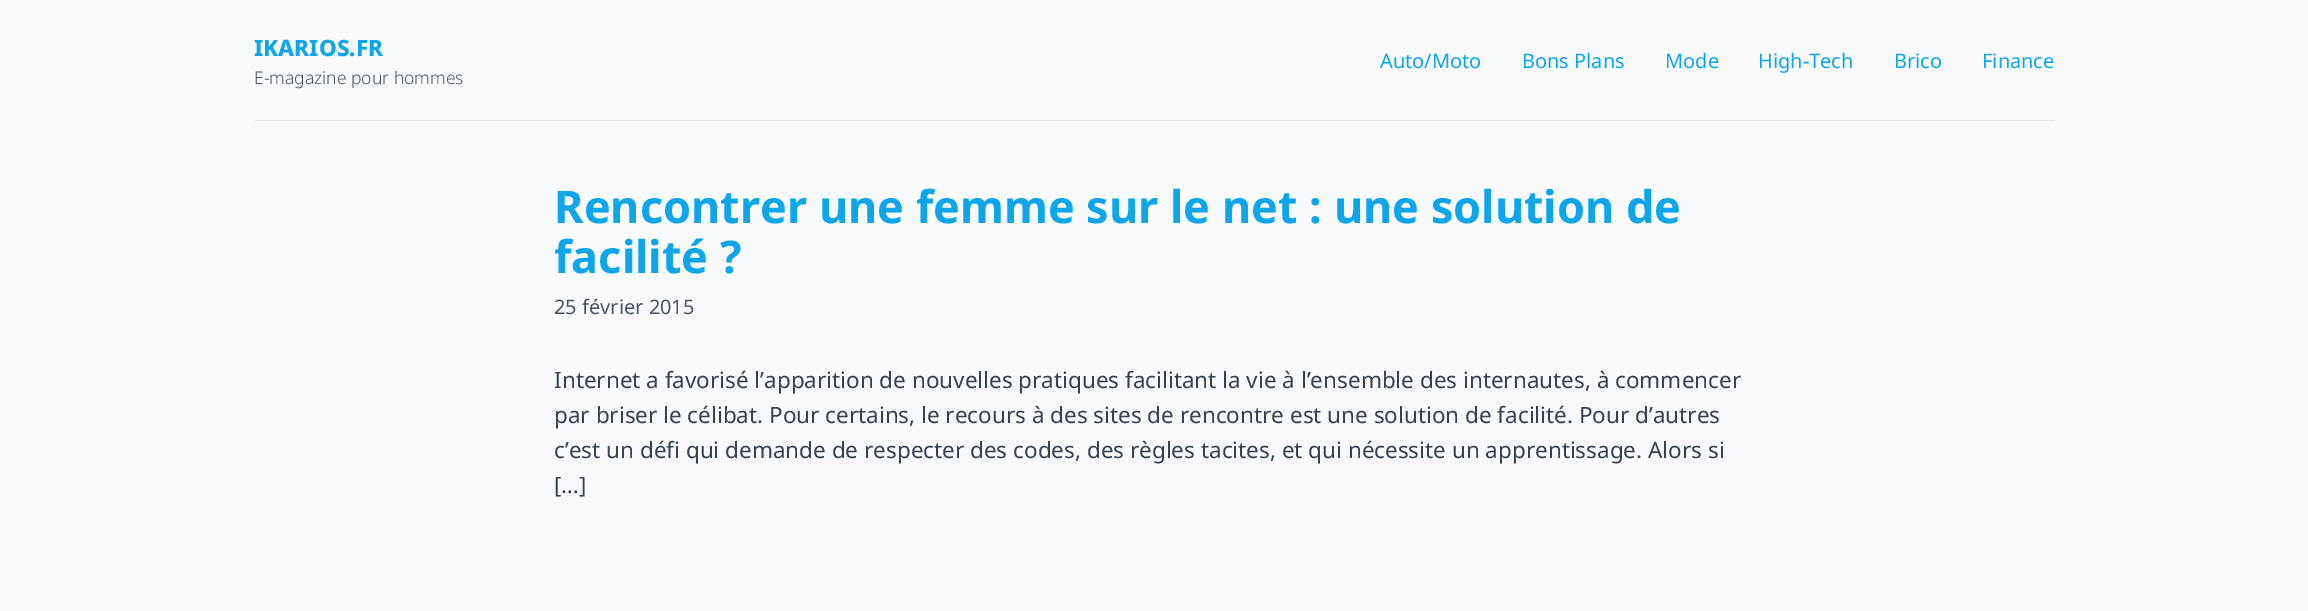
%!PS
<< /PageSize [2308 611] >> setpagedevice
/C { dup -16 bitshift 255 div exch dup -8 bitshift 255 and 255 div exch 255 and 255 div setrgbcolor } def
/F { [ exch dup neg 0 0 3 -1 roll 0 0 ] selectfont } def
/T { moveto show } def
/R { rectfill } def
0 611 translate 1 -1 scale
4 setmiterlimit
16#F9FAFB C
0 0 2308 611 R
16#E5E7EB C
255 120 1800 1 R
/NotoSans-ExtraBold 22.5 F
16#0EA5E9 C
(IKARIOS.FR) 254 56 T
/NotoSans-Light 17.5 F
16#4B5563 C
(E-magazine pour hommes) 254 84 T
/NotoSans-Regular 20 F
16#0EA5E9 C
(Auto/Moto) 1380 68 T
(Bons Plans) 1522 68 T
(Mode) 1665 68 T
(High-Tech) 1758 68 T
(Brico) 1894 68 T
(Finance) 1982 68 T
/NotoSans-Bold 45 F
(Rencontrer une femme sur le net : une solution de) 554 223 T
(facilité ?) 554 273 T
/NotoSans-Regular 20 F
16#4B5563 C
(25 février 2015) 554 314 T
/NotoSans-Regular 22.5 F
16#374151 C
(Internet a favorisé l’apparition de nouvelles pratiques facilitant la vie à l’ensemble des internautes, à commencer) 554 388 T
(par briser le célibat. Pour certains, le recours à des sites de rencontre est une solution de facilité. Pour d’autres) 554 423 T
(c’est un défi qui demande de respecter des codes, des règles tacites, et qui nécessite un apprentissage. Alors si) 554 458 T
([…]) 554 493 T
showpage
